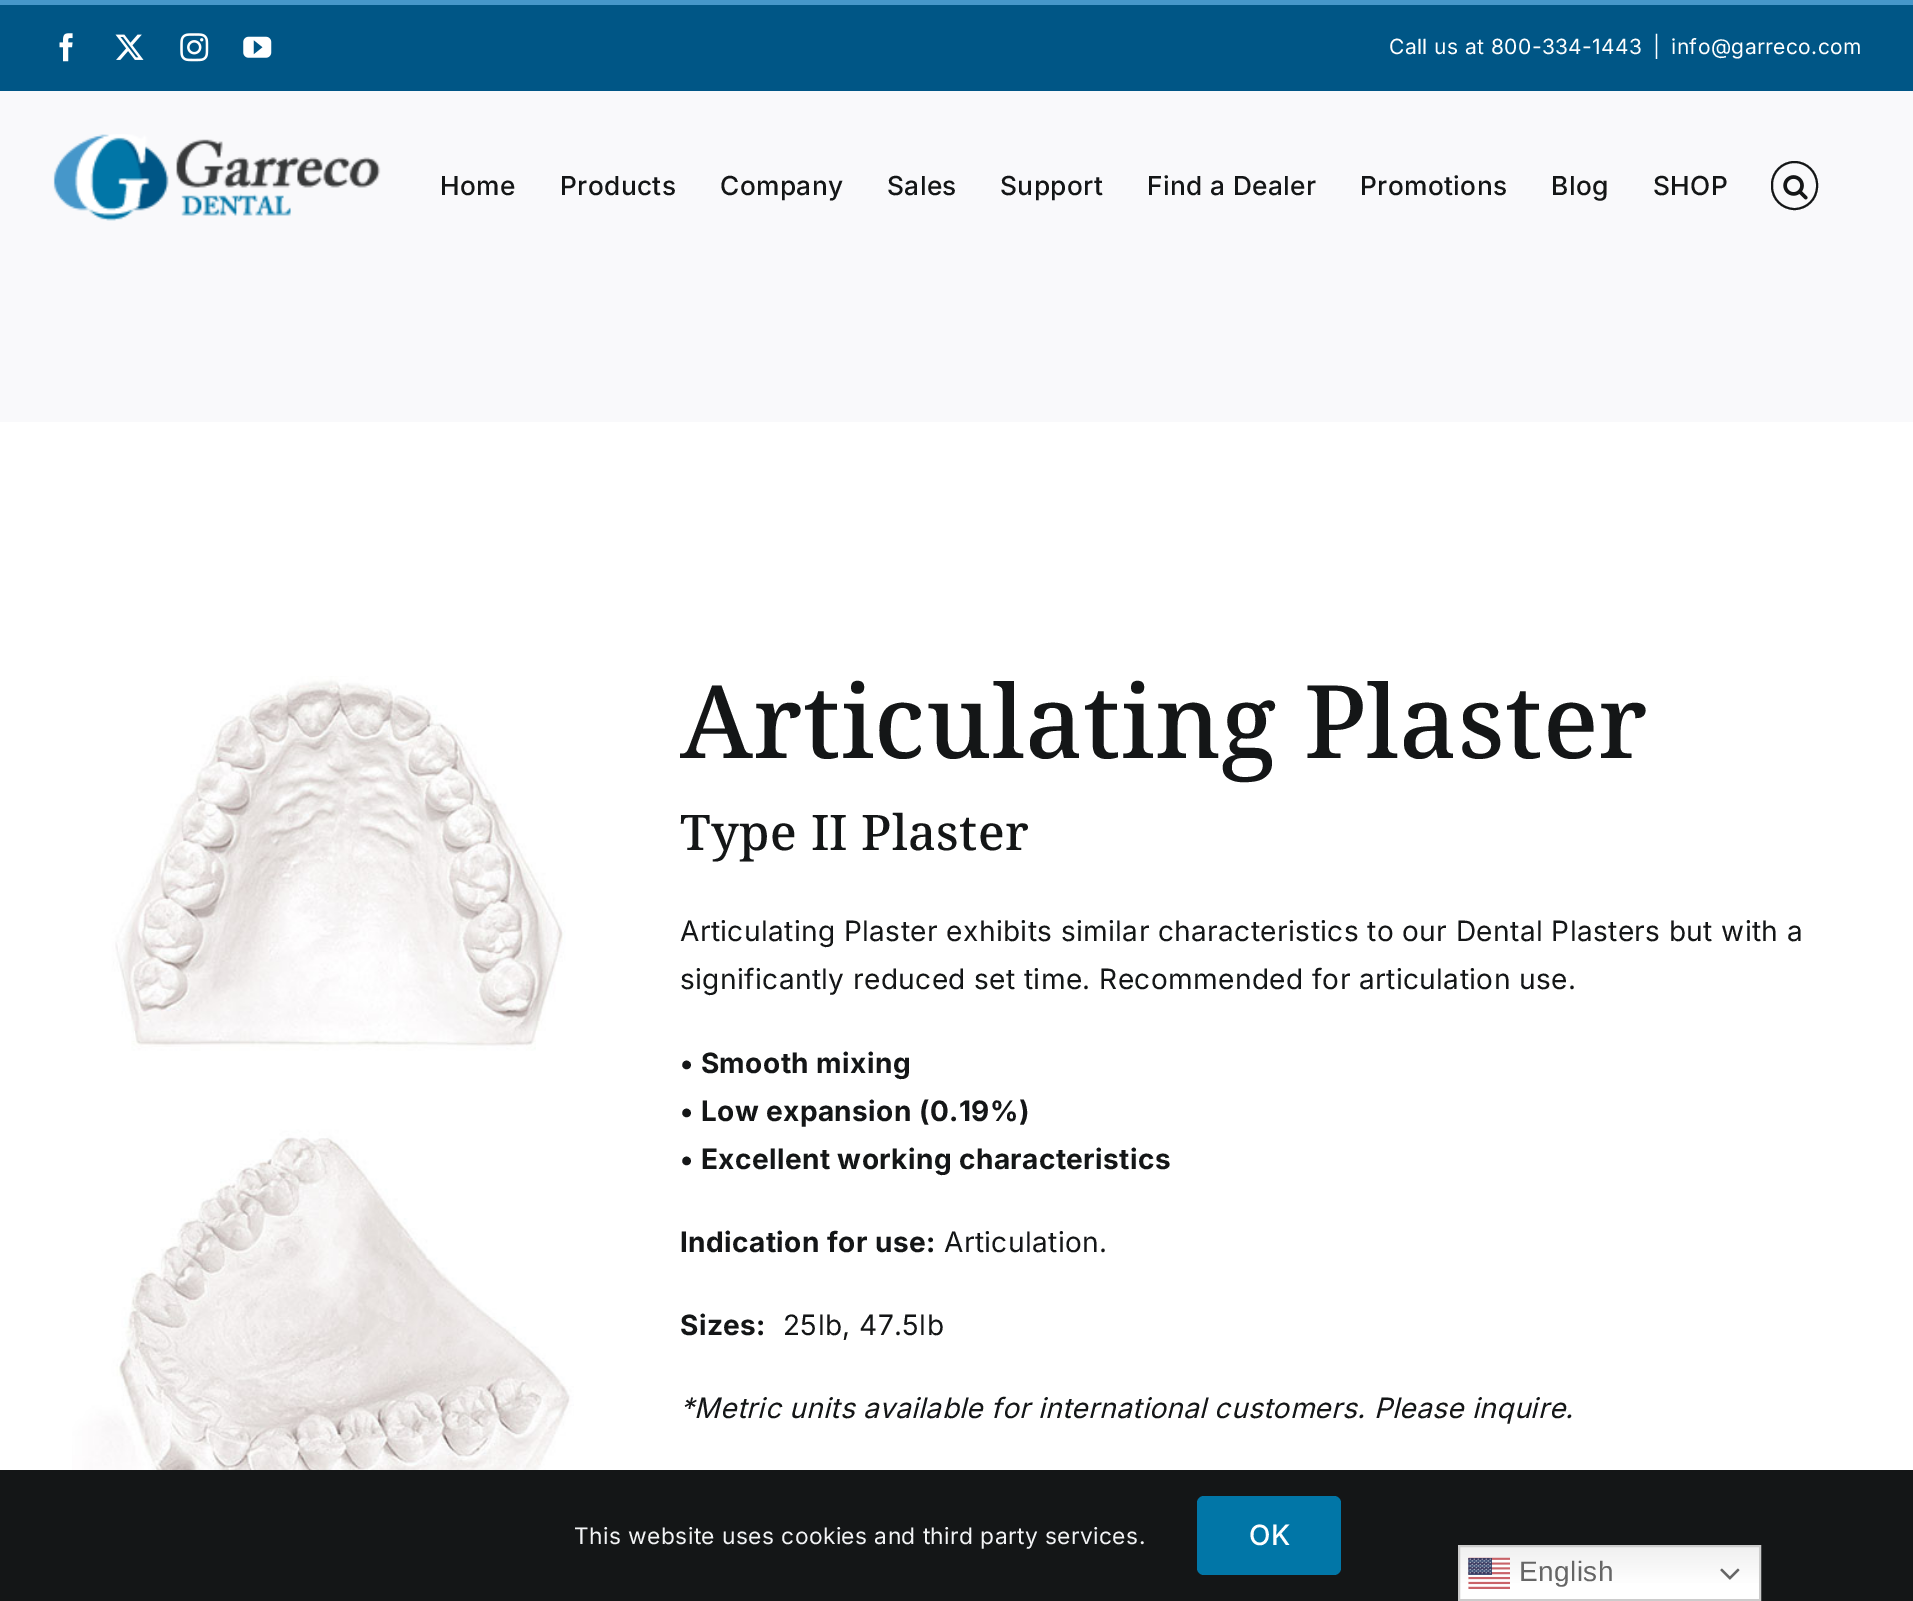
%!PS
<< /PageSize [1913 1601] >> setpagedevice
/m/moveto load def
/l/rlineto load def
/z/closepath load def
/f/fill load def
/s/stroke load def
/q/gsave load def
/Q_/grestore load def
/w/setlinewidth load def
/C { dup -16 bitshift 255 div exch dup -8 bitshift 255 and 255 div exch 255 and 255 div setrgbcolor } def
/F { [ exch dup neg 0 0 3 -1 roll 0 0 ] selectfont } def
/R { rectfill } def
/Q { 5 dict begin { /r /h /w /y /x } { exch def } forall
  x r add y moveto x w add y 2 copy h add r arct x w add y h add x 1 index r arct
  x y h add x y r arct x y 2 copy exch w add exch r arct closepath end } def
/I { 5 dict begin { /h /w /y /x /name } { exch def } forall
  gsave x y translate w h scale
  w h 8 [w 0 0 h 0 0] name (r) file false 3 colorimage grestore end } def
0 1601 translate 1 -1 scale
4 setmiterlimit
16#FFFFFF C
0 0 1913 1601 R
16#005686 C
0 5 1913 86 R
16#4697CA C
0 0 1913 5 R
(1.rgb) 59 33 14 29 I
(2.rgb) 115 34 29 26 I
(3.rgb) 180 33 29 29 I
(4.rgb) 243 36 29 22 I
/Inter-Regular 21 F
16#FFFFFF C
1389 54 m .42 0 (Call us at 800-334-1443) ashow
1653 54 m .42 0 (|) ashow
1671 54 m .42 0 (info@garreco.com) ashow
16#F9F9FB C
0 91 1913 331 R
(5.rgb) 53 134 328 87 I
/Inter-Medium 26.25 F
16#141617 C
440 195 m .4 0 (Home) ashow
560 195 m .4 0 (Products) ashow
720 195 m .4 0 (Company) ashow
887 195 m .4 0 (Sales) ashow
1000 195 m .4 0 (Support) ashow
1147 195 m .4 0 (Find a Dealer) ashow
1360 195 m .4 0 (Promotions) ashow
1551 195 m .4 0 (Blog) ashow
1653 195 m .4 0 (SHOP) ashow
2 w
1772 162 45 47 22.5 Q s
(6.rgb) 1783 175 25 25 I
(7.rgb) 72 676 502 794 I
/NotoSerif-Medium 101.5 F
680 758 m .42 0 (Articulating Plaster) ashow
/NotoSerif-Medium 49 F
680 850 m .42 0 (Type II Plaster) ashow
/Inter-Regular 28 F
680 941 m .42 0 (Articulating Plaster exhibits similar characteristics to our Dental Plasters but with a) ashow
680 989 m .42 0 (significantly reduced set time. Recommended for articulation use.) ashow
/Inter-Bold 28 F
680 1073 m .42 0 (• Smooth mixing) ashow
680 1121 m .42 0 (• Low expansion \(0.19%\)) ashow
680 1169 m .42 0 (• Excellent working characteristics) ashow
680 1252 m .42 0 (Indication for use:) ashow
/Inter-Regular 28 F
944 1252 m .42 0 (Articulation.) ashow
/Inter-Bold 28 F
680 1335 m .42 0 (Sizes:) ashow
/Inter-Regular 28 F
783 1335 m .42 0 (25lb, 47.5lb) ashow
/Inter-Italic 28 F
680 1418 m -.5 0 32 .42 0 (*Metric units available for international customers. Please inquire.) awidthshow
0 1470 1913 131 R
/Inter-Regular 22.75 F
16#F2F3F5 C
574 1544 m .42 0 (This website uses cookies and third party services.) ashow
16#0176A7 C
1197 1496 144 79 7 Q f
/Inter-Medium 28 F
16#FFFFFF C
1249 1545 m .42 0 (OK) ashow
q 1460 1547 m 299 0 l 0 52 l -299 0 l z clip newpath
<< /ShadingType 2 /ColorSpace /DeviceRGB /Coords [1609 1545 1609 1601] /Extend [true true] /Function << /FunctionType 3 /Domain [0 1] /Functions [<< /FunctionType 2 /Domain [0 1] /C0 [.937 .937 .937] /C1 [1 1 1] /N 1 >> << /FunctionType 2 /Domain [0 1] /C0 [1 1 1] /C1 [1 1 1] /N 1 >>] /Bounds [.7] /Encode [0 1 0 1] >> >> shfill Q_
16#CCCCCC C
1459 1546 301 54 rectstroke
(8.rgb) 1468 1557 42 32 I
/LiberationSans-Regular 28 F
16#666666 C
1519 1581 m .42 0 (English) ashow
(9.rgb) 1720 1568 20 12 I
showpage
